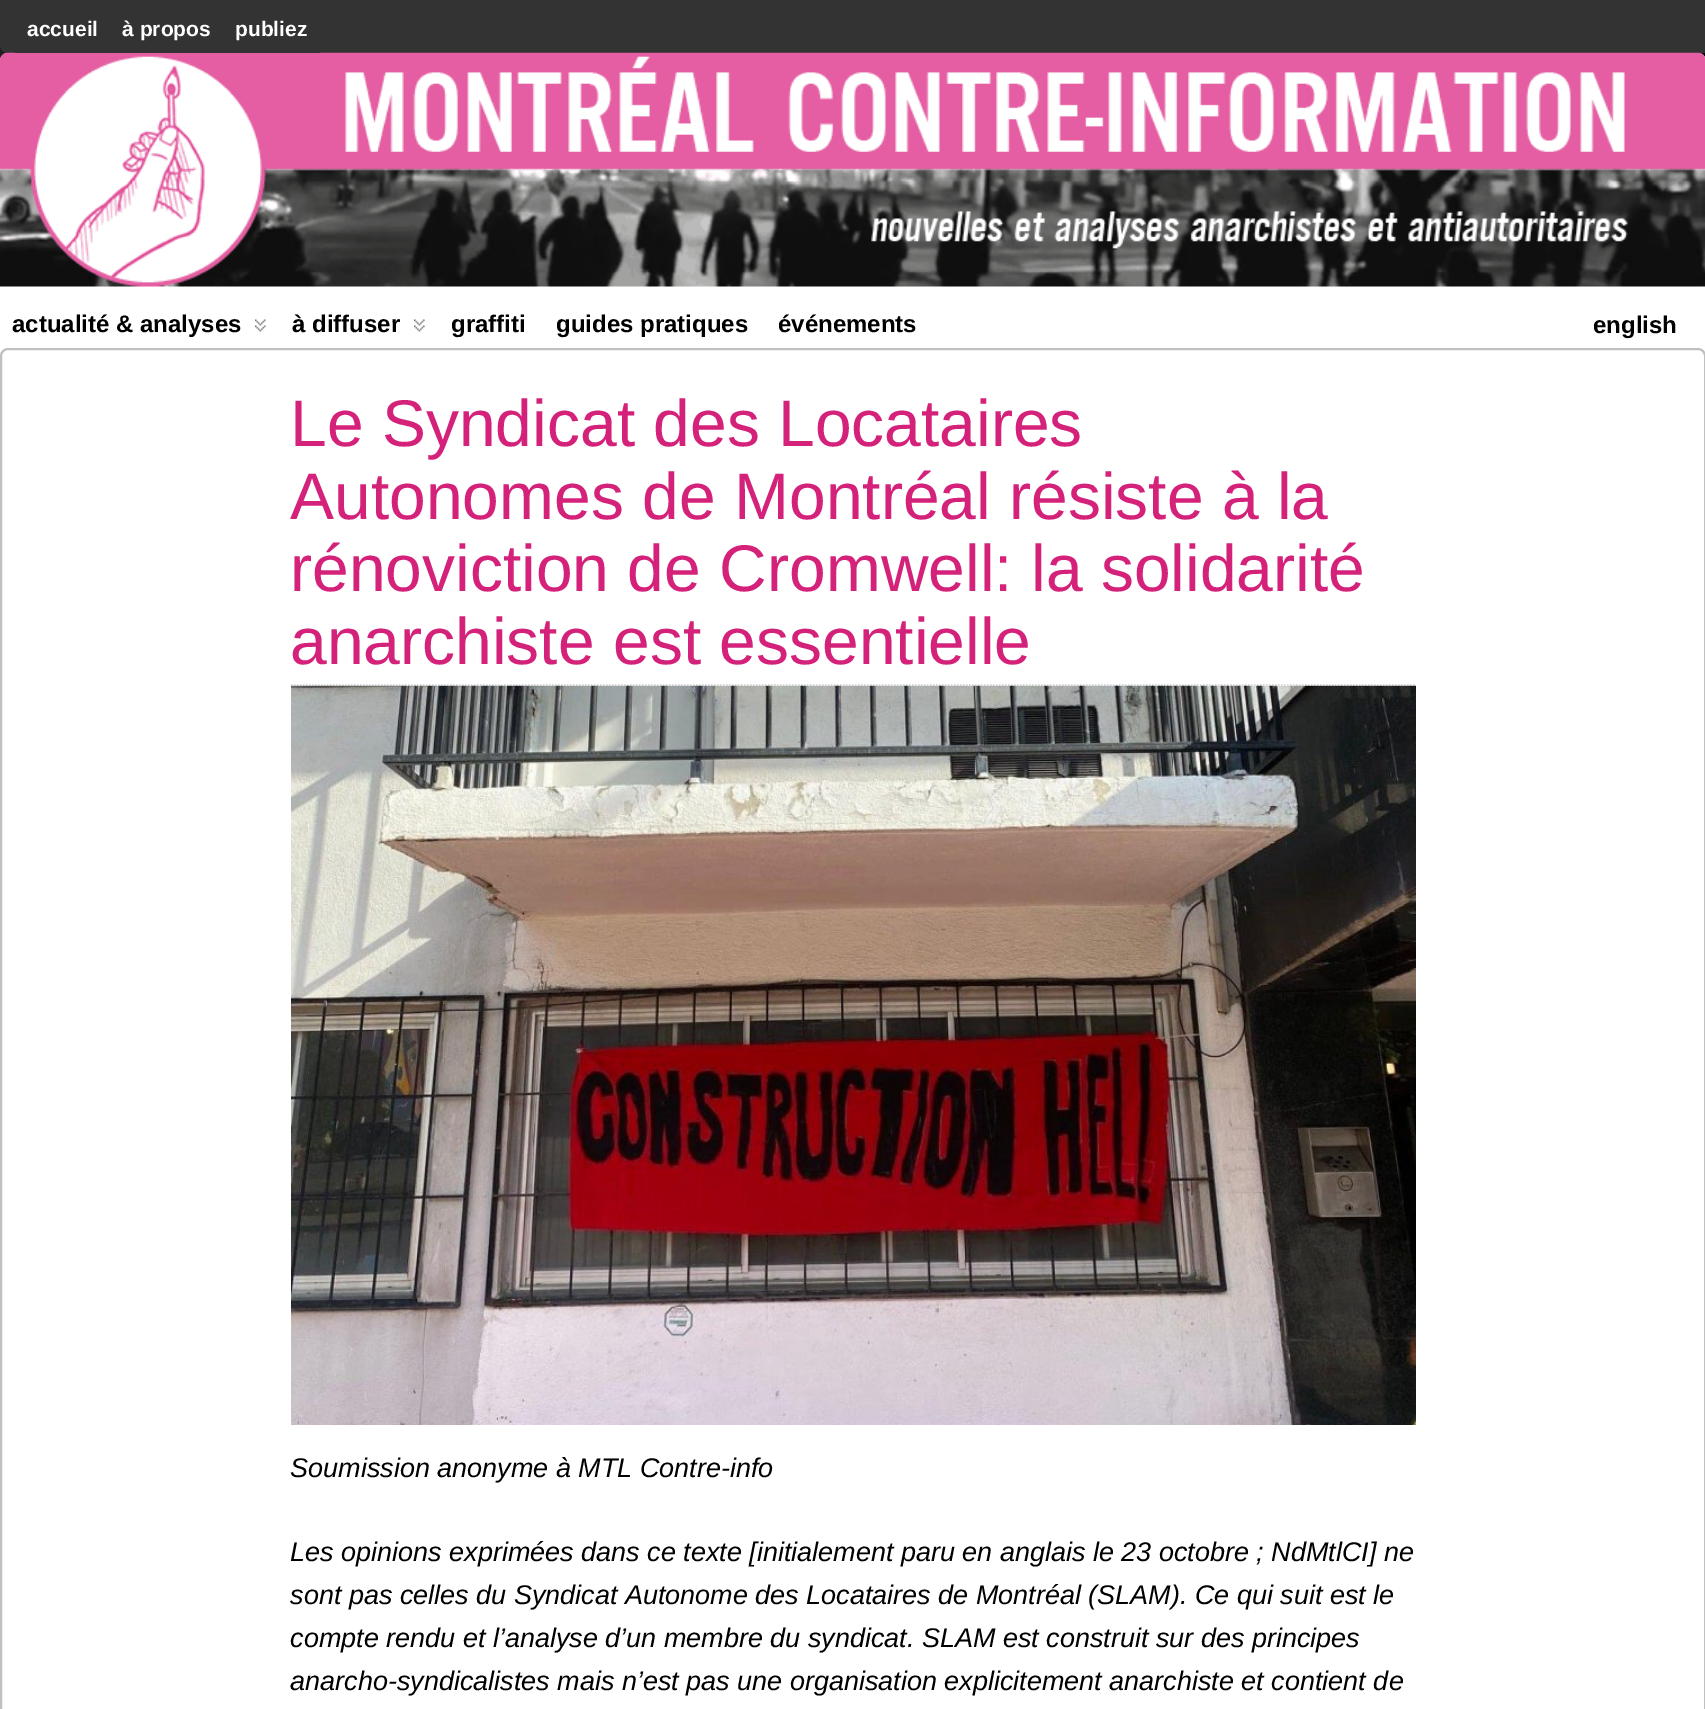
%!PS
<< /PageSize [1705 1709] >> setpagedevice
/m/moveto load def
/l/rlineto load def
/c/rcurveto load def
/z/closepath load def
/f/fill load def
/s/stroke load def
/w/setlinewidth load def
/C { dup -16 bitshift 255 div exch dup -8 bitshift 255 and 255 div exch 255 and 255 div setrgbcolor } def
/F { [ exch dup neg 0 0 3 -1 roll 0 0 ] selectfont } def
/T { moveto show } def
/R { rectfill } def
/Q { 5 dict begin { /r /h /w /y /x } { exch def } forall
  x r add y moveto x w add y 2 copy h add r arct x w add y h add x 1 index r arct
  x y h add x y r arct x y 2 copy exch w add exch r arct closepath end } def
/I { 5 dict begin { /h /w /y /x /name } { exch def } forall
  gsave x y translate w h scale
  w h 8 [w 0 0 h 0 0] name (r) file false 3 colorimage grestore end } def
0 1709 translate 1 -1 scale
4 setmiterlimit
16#FFFFFF C
0 0 1705 1709 R
(1.rgb) 0 45 1705 15 I
16#333334 C
0 0 m 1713 0 l 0 45 l 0 4.5 -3.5 8 -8 8 c -1697 0 l -4.5 0 -8 -3.5 -8 -8 c z f
16#FFFFFF C
0 53 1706 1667 11 Q f
0 53 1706 243 8 Q f
(2.rgb) 0 52 1705 235 I
16#333333 C
15 52 305 1 R
/LiberationSans-Bold 21 F
16#FFFFFF C
(accueil) 27 36 T
(à propos) 122 36 T
(publiez) 235 36 T
/LiberationSans-Bold 24 F
16#000000 C
(actualité & analyses) 12 332 T
(3.rgb) 255 319 11 13 I
(à diffuser) 292 332 T
(4.rgb) 414 319 11 13 I
(graffiti) 451 332 T
(guides pratiques) 556 332 T
(événements) 778 332 T
(english) 1593 333 T
16#C0C0C0 C
2 w
1 349 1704 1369 7 Q s
16#CCCCCC C
1.5 w
[1.5 1.5] 0 setdash
291 685 m 1125 0 l s
/LiberationSans-Regular 66 F
16#D4217A C
(Le Syndicat des Locataires) 290 446 T
(Autonomes de Montréal résiste à la) 290 519 T
(rénoviction de Cromwell: la solidarité) 290 591 T
(anarchiste est essentielle) 290 664 T
(5.rgb) 291 685 1125 740 I
/LiberationSans-Italic 27 F
16#000000 C
(Soumission anonyme à MTL Contre-info) 290 1477 T
(Les opinions exprimées dans ce texte [initialement paru en anglais le 23 octobre ; NdMtlCI] ne) 290 1561 T
(sont pas celles du Syndicat Autonome des Locataires de Montréal \(SLAM\). Ce qui suit est le) 290 1604 T
(compte rendu et l’analyse d’un membre du syndicat. SLAM est construit sur des principes) 290 1647 T
(anarcho-syndicalistes mais n’est pas une organisation explicitement anarchiste et contient de) 290 1690 T
showpage
